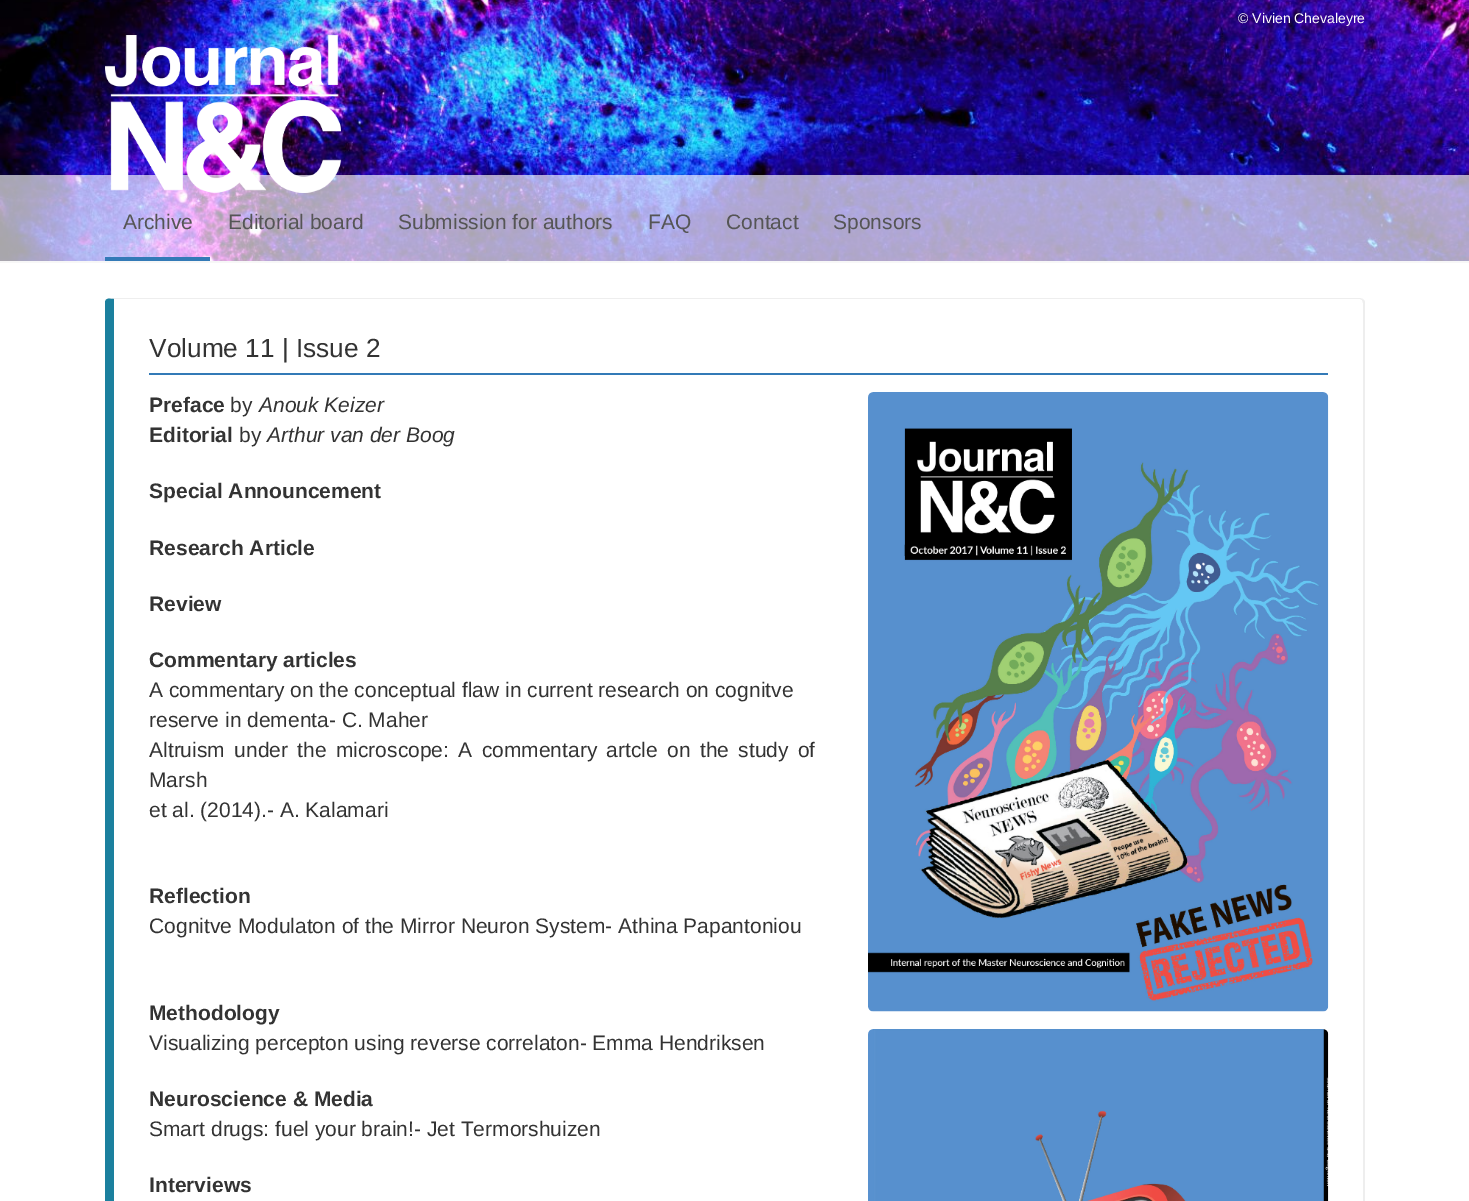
%!PS
<< /PageSize [1469 1201] /PageUsesTransparency true >> setpagedevice
/m/moveto load def
/l/rlineto load def
/c/rcurveto load def
/z/closepath load def
/f/fill load def
/C { dup -16 bitshift 255 div exch dup -8 bitshift 255 and 255 div exch 255 and 255 div setrgbcolor } def
/F { [ exch dup neg 0 0 3 -1 roll 0 0 ] selectfont } def
/T { moveto show } def
/R { rectfill } def
/A { dup .setfillconstantalpha .setstrokeconstantalpha } def
/I { 5 dict begin { /h /w /y /x /name } { exch def } forall
  gsave x y translate w h scale
  w h 8 [w 0 0 h 0 0] name (r) file false 3 colorimage grestore end } def
0 .pushpdf14devicefilter
0 1201 translate 1 -1 scale
4 setmiterlimit
16#FFFFFF C
0 0 1469 1201 R
(1.rgb) 0 0 1469 261 I
16#E7E7E7 C
0 261 1469 2 R
/LiberationSans-Regular 14 F
16#FFFFFF C
(© Vivien Chevaleyre) 1238 23 T
0.65 A
0 175 1469 88 R
1 A
(2.rgb) 105 35 236 158 I
16#337AB7 C
105 257 105 4 R
/LiberationSans-Regular 21 F
16#555555 C
(Archive) 123 229 T
(Editorial board) 228 229 T
(Submission for authors) 398 229 T
(FAQ) 648 229 T
(Contact) 726 229 T
(Sponsors) 833 229 T
16#EEEEEE C
110 298 m -2 0 l 6 1 l 1246 0 l 2 1 l 1 -1 l -3 -1 l z f
1365 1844 m 0 -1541 l 0 -2 -1 -3 -2 -4 c -1 1 l 1 3 l 0 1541 l -1 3 l 2 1 l 0 -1 1 -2 1 -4 c z f
16#1B809E C
105 303 m 0 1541 l 0 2 1 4 3 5 c 6 -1 l 0 -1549 l -4 0 -9 -2 -9 4 c z f
16#337AB7 C
149 373 1179 2 R
/LiberationSans-Regular 26.25 F
16#333333 C
(Volume 11 | Issue 2) 149 357 T
/LiberationSans-Bold 21 F
(Preface) 149 412 T
/LiberationSans-Regular 21 F
(by) 230 412 T
/LiberationSans-Italic 21 F
(Anouk Keizer) 259 412 T
/LiberationSans-Bold 21 F
(Editorial) 149 442 T
/LiberationSans-Regular 21 F
(by) 239 442 T
/LiberationSans-Italic 21 F
(Arthur van der Boog) 267 442 T
/LiberationSans-Bold 21 F
(Special Announcement) 149 498 T
(Research Article) 149 555 T
(Review) 149 611 T
(Commentary articles) 149 667 T
/LiberationSans-Regular 21 F
(A commentary on the conceptual ﬂaw in current research on cognitve) 149 697 T
(reserve in dementa- C. Maher) 149 727 T
149 757 m 3.5 0 32 (Altruism under the microscope: A commentary artcle on the study of) widthshow
(Marsh) 149 787 T
(et al. \(2014\).- A. Kalamari) 149 817 T
/LiberationSans-Bold 21 F
(Reflection) 149 903 T
/LiberationSans-Regular 21 F
(Cognitve Modulaton of the Mirror Neuron System- Athina Papantoniou) 149 933 T
/LiberationSans-Bold 21 F
(Methodology) 149 1020 T
/LiberationSans-Regular 21 F
(Visualizing percepton using reverse correlaton- Emma Hendriksen) 149 1050 T
/LiberationSans-Bold 21 F
(Neuroscience & Media) 149 1106 T
/LiberationSans-Regular 21 F
(Smart drugs: fuel your brain!- Jet Termorshuizen) 149 1136 T
/LiberationSans-Bold 21 F
(Interviews) 149 1192 T
(3.rgb) 868 392 461 620 I
(4.rgb) 868 1029 461 172 I
.poppdf14devicefilter showpage
